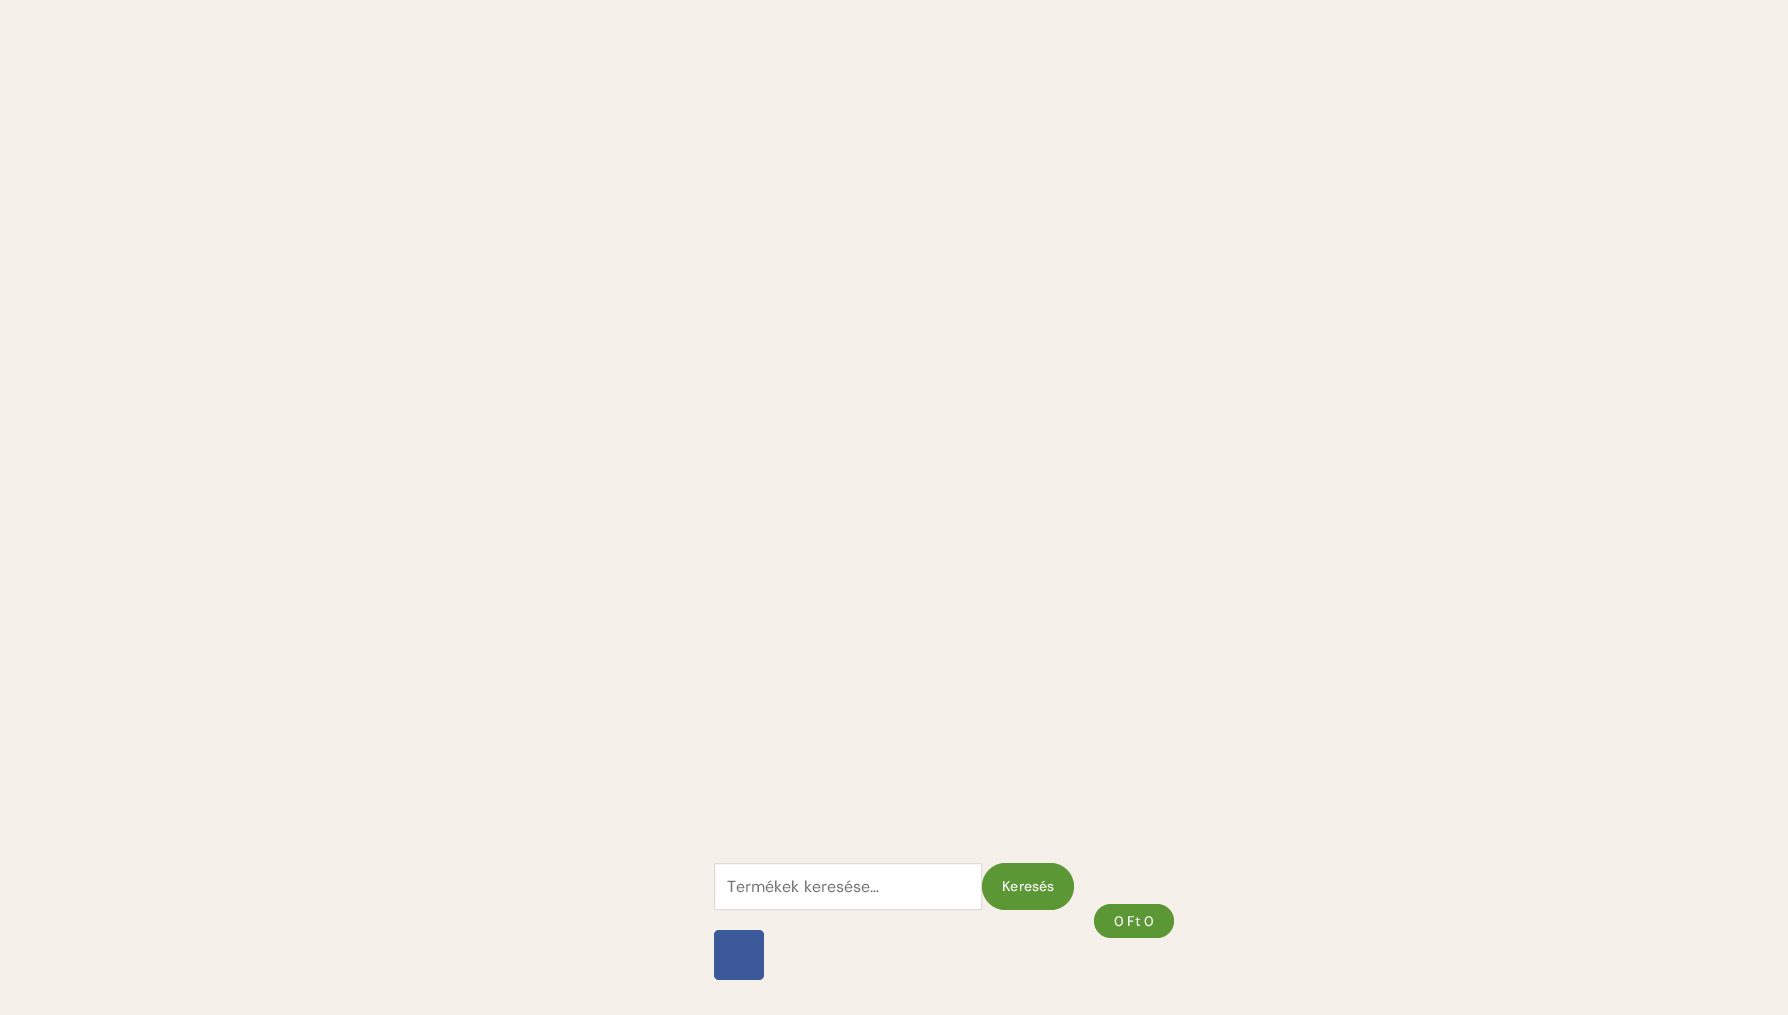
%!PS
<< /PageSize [1788 1015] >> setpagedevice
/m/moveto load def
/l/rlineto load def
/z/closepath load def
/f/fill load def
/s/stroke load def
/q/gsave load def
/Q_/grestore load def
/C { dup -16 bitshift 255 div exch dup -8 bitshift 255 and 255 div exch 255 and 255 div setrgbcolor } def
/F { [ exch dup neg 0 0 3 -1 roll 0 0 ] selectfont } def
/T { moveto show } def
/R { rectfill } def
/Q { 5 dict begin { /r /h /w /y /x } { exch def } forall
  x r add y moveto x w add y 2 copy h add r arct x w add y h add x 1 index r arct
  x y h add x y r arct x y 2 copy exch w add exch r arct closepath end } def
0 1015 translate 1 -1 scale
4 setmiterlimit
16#F6F0EB C
0 0 1788 1015 R
16#FFFFFF C
714.5 863.5 m 267 0 l 0 46 l -267 0 l z q f Q_
16#DDDDDD C
s
/DMSans-Regular 16 F
16#757575 C
(Termékek keresése…) 727 892 T
16#5C9735 C
982 863 92 47 23.5 Q f
/DMSans-Medium 14 F
16#F9F7F7 C
(Keresés) 1002 891 T
16#3B5998 C
714 930 50 50 5 Q f
16#5C9735 C
1094 904 80 34 17 Q f
16#F9F7F7 C
(0 Ft 0) 1114 926 T
showpage
